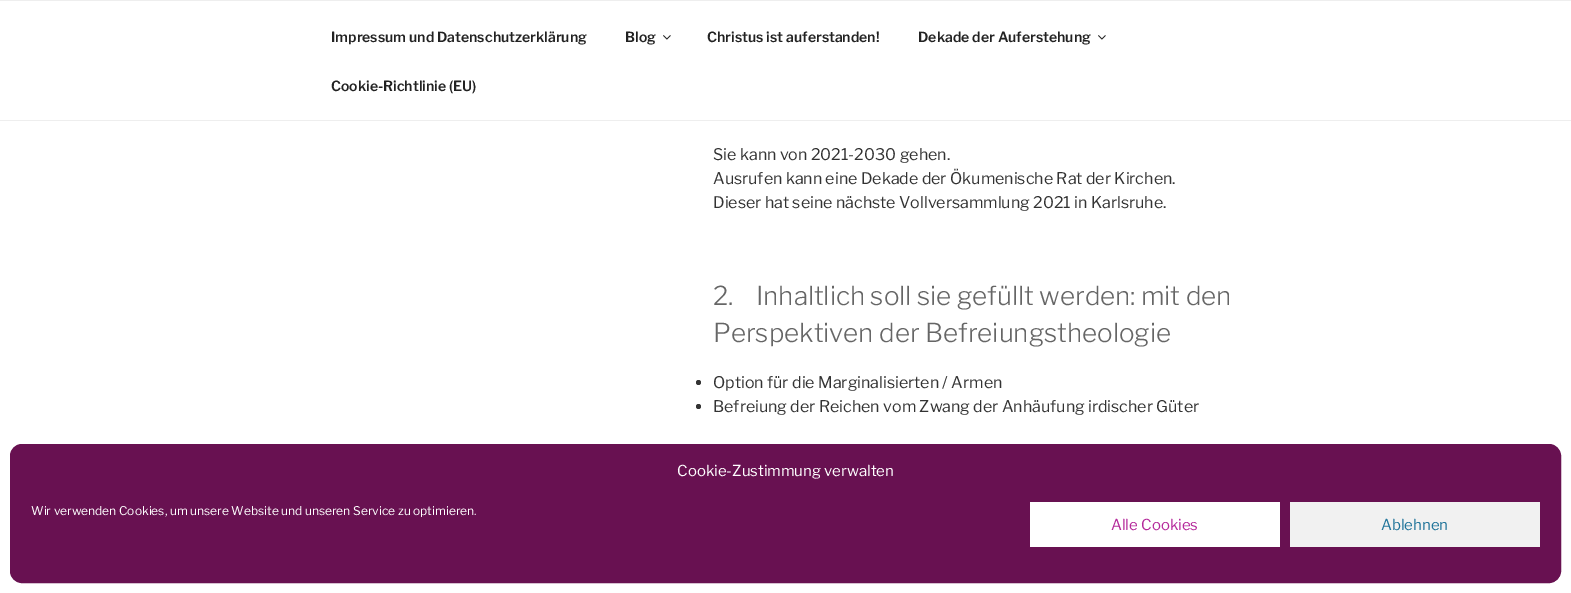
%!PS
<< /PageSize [1571 593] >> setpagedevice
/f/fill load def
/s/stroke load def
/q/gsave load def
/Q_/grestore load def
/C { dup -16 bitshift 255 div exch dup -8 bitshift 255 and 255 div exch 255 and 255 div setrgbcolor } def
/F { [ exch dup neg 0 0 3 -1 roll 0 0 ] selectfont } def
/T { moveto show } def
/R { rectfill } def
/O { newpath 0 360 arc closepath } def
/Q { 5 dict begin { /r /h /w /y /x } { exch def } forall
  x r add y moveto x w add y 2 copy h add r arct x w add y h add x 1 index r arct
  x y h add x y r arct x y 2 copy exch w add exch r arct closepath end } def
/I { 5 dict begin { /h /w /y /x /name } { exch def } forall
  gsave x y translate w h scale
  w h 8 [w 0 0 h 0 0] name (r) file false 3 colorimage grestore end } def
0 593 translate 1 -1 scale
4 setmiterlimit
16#FFFFFF C
0 0 1571 593 R
16#EEEEEE C
0 0 1571 1 R
0 120 1571 1 R
/LibreFranklin-SemiBold 14 F
16#222222 C
(Impressum und Datenschutzerklärung) 331 42 T
(Blog) 625 42 T
(1.rgb) 663 35 8 5 I
(Christus ist auferstanden!) 707 42 T
(Dekade der Auferstehung) 918 42 T
(1.rgb) 1098 35 8 5 I
(Cookie-Richtlinie \(EU\)) 331 91 T
/LibreFranklin-Regular 16 F
16#333333 C
(Sie kann von 2021-2030 gehen.) 713 160 T
(Ausrufen kann eine Dekade der Ökumenische Rat der Kirchen.) 713 184 T
(Dieser hat seine nächste Vollversammlung 2021 in Karlsruhe.) 713 208 T
/LibreFranklin-Light 26 F
16#666666 C
(2.    Inhaltlich soll sie gefüllt werden: mit den) 713 305 T
(Perspektiven der Befreiungstheologie) 713 342 T
16#333333 C
698.5 382.5 2.5 O f
/LibreFranklin-Regular 16 F
(Option für die Marginalisierten / Armen) 713 388 T
698.5 406.5 2.5 O f
(Befreiung der Reichen vom Zwang der Anhäufung irdischer Güter) 713 412 T
16#681151 C
10.5 444.5 1550 138 11.5 Q q f Q_
s
/LibreFranklin-Regular 15 F
16#FFFFFF C
(Cookie-Zustimmung verwalten) 677 476 T
/LibreFranklin-Regular 12 F
(Wir verwenden Cookies, um unsere Website und unseren Service zu optimieren.) 31 515 T
1030 502 250 45 R
/LibreFranklin-Regular 15 F
16#B5299B C
(Alle Cookies) 1111 530 T
16#F1F1F1 C
1290 502 250 45 R
16#21759B C
(Ablehnen) 1381 530 T
showpage
